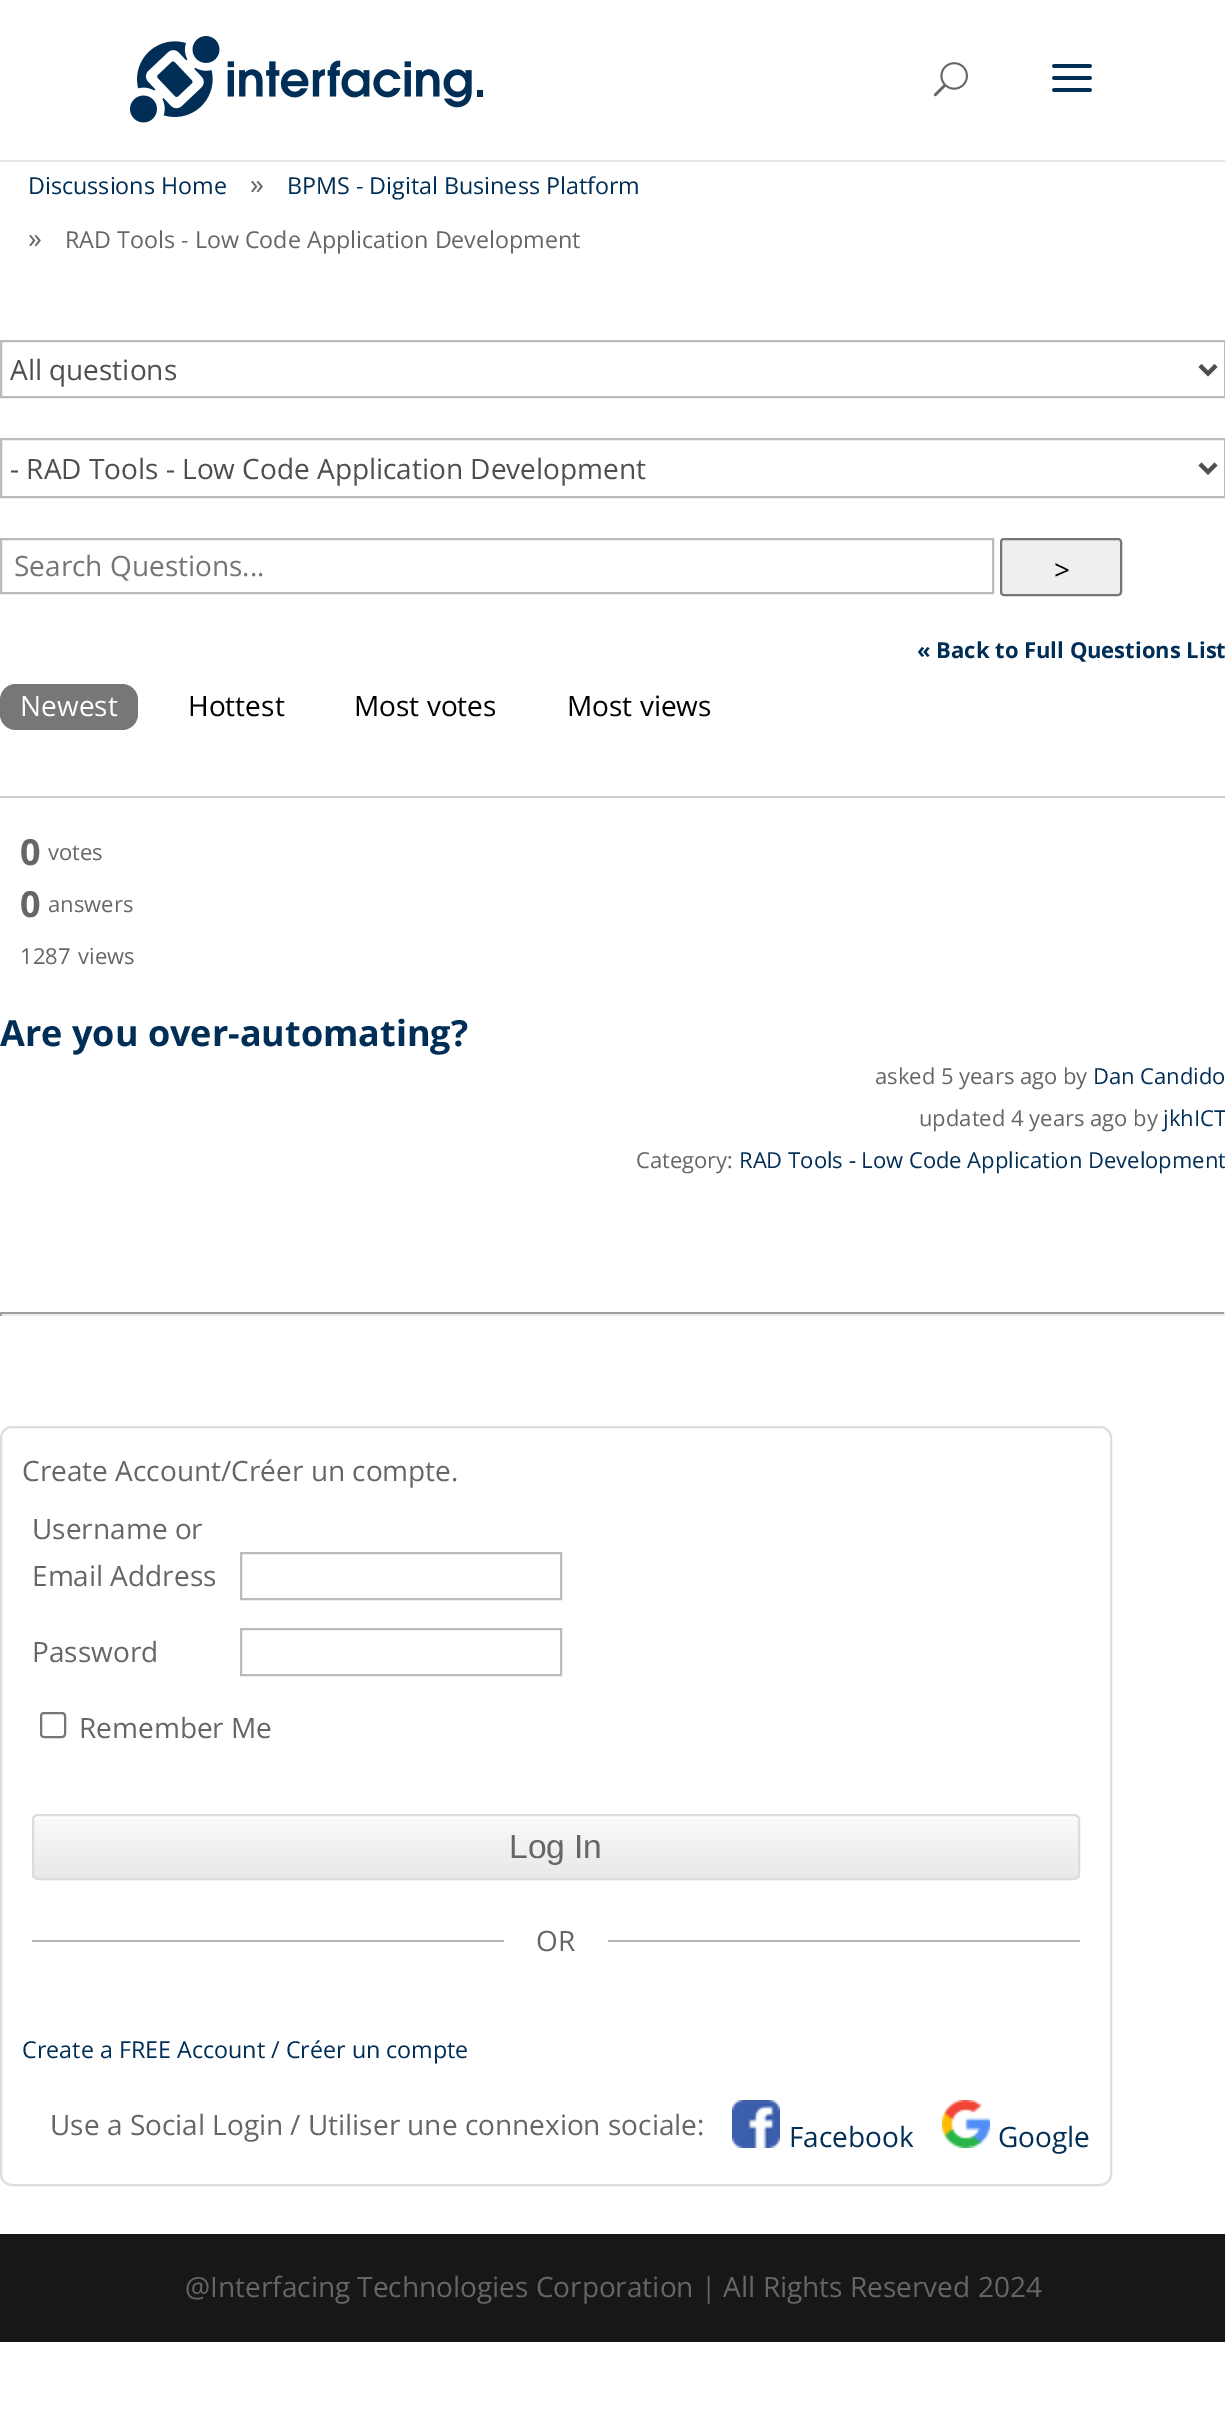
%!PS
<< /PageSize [1225 2412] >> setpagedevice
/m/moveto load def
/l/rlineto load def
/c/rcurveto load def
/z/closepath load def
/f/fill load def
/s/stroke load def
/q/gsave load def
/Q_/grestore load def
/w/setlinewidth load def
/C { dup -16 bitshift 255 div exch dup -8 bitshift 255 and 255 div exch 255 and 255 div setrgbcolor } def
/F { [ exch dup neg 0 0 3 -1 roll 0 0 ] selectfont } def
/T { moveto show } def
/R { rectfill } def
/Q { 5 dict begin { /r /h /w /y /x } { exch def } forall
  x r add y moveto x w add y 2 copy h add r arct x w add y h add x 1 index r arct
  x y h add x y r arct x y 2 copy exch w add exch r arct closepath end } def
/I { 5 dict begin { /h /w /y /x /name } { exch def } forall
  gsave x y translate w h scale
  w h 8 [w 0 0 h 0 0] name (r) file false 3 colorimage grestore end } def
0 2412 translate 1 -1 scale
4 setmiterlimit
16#FFFFFF C
0 0 1225 2412 R
16#E6E6E6 C
0 160 1225 2 R
(1.rgb) 130 36 353 87 I
(2.rgb) 933 62 35 35 I
(3.rgb) 1052 64 40 28 I
/OpenSans-Regular 23.3 F
16#002E56 C
(Discussions Home) 28 194 T
/OpenSans-Regular 28 F
16#666666 C
(») 250 194 T
/OpenSans-Regular 23.3 F
16#002E56 C
(BPMS - Digital Business Platform) 287 194 T
/OpenSans-Regular 28 F
16#666666 C
(») 28 248 T
/OpenSans-Regular 23.3 F
(RAD Tools - Low Code Application Development) 65 248 T
16#BBBBBB C
2 w
1 341 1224 56 rectstroke
16#4E4E4E C
4 w
1200 365.5 m 8 8 l 8 -8 l s
/OpenSans-Regular 28 F
(All questions) 10 380 T
16#BBBBBB C
2 w
1 439 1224 58 rectstroke
16#4E4E4E C
4 w
1200 464 m 8 8 l 8 -8 l s
(- RAD Tools - Low Code Application Development) 10 479 T
16#BBBBBB C
2 w
1 539 992 54 rectstroke
16#757575 C
(Search Questions...) 14 576 T
16#EFEFEF C
1001 539 120 56 3 Q q f Q_
16#767676 C
s
16#000000 C
(>) 1054 580 T
/OpenSans-Bold 22 F
16#002E56 C
(« Back to Full Questions List) 917 658 T
16#777777 C
0 684 138 46 16 Q f
/OpenSans-Regular 28 F
16#FFFFFF C
(Newest) 20 716 T
16#000000 C
(Hottest) 188 716 T
(Most votes) 354 716 T
(Most views) 567 716 T
16#CCCCCC C
0 796 1225 2 R
/OpenSans-Bold 36 F
16#666666 C
(0) 20 865 T
/OpenSans-Regular 22 F
(votes) 48 860 T
/OpenSans-Bold 36 F
(0) 20 917 T
/OpenSans-Regular 22 F
(answers) 48 912 T
(1287) 20 964 T
(views) 78 964 T
/OpenSans-Bold 36 F
16#002E56 C
(Are you over-automating?) 0 1046 T
/OpenSans-Regular 22 F
16#666666 C
(asked 5 years ago by) 875 1084 T
16#002E56 C
(Dan Candido) 1093 1084 T
16#666666 C
(updated 4 years ago by) 919 1126 T
16#002E56 C
(jkhICT) 1163 1126 T
16#666666 C
(Category:) 636 1168 T
16#002E56 C
(RAD Tools - Low Code Application Development) 739 1168 T
16#9F9F9F C
0 1312 1225 2 R
16#EEEEEE C
1224 1312 1 4 R
0 1314 1225 2 R
16#9F9F9F C
0 1312 2 4 R
16#DDDDDD C
1 1427 1110 758 11 Q s
/OpenSans-Regular 28 F
16#666666 C
(Create Account/Créer un compte.) 22 1481 T
(Username or) 32 1539 T
(Email Address) 32 1586 T
16#BBBBBB C
241 1553 320 46 rectstroke
16#666666 C
(Password) 32 1662 T
16#BBBBBB C
241 1629 320 46 rectstroke
16#767676 C
41 1713 24 24 3 Q s
16#666666 C
(Remember Me) 79 1738 T
q
32 1814 1048 66 6 Q clip newpath
q 32 1816 m 1048 0 l 0 62 l -1048 0 l z clip newpath
<< /ShadingType 2 /ColorSpace /DeviceRGB /Coords [556 1816 556 1878] /Extend [true true] /Function << /FunctionType 3 /Domain [0 1] /Functions [<< /FunctionType 2 /Domain [0 1] /C0 [.976 .976 .976] /C1 [.976 .976 .976] /N 1 >> << /FunctionType 2 /Domain [0 1] /C0 [.976 .976 .976] /C1 [.914 .914 .914] /N 1 >>] /Bounds [.05] /Encode [0 1 0 1] >> >> shfill Q_
Q_
16#FFFFFF C
38 1818 m 1036 0 l 2 0 4 2 4 4 c 0 -2 l 0 -2 -2 -4 -4 -4 c -1036 0 l -2 0 -4 2 -4 4 c 0 2 l 0 -2 2 -4 4 -4 c z f
16#DCDCDC C
33 1815 1046 64 5 Q s
/LiberationSans-Regular 33.5 F
16#666666 C
(Log In) 509 1858 T
16#B4B4B4 C
32 1940 472 2 R
/OpenSans-Regular 28 F
16#666666 C
(OR) 536 1951 T
16#B4B4B4 C
608 1940 472 2 R
/OpenSans-Regular 23.3 F
16#002E56 C
(Create a FREE Account / Créer un compte) 22 2058 T
/OpenSans-Regular 28 F
16#666666 C
(Use a Social Login / Utiliser une connexion sociale:) 50 2135 T
(4.rgb) 732 2100 48 48 I
16#002E56 C
(Facebook) 789 2147 T
(5.rgb) 942 2100 48 48 I
(Google) 998 2147 T
16#171717 C
0 2234 1225 108 R
16#666666 C
(@Interfacing Technologies Corporation | All Rights Reserved 2024) 185 2297 T
showpage
